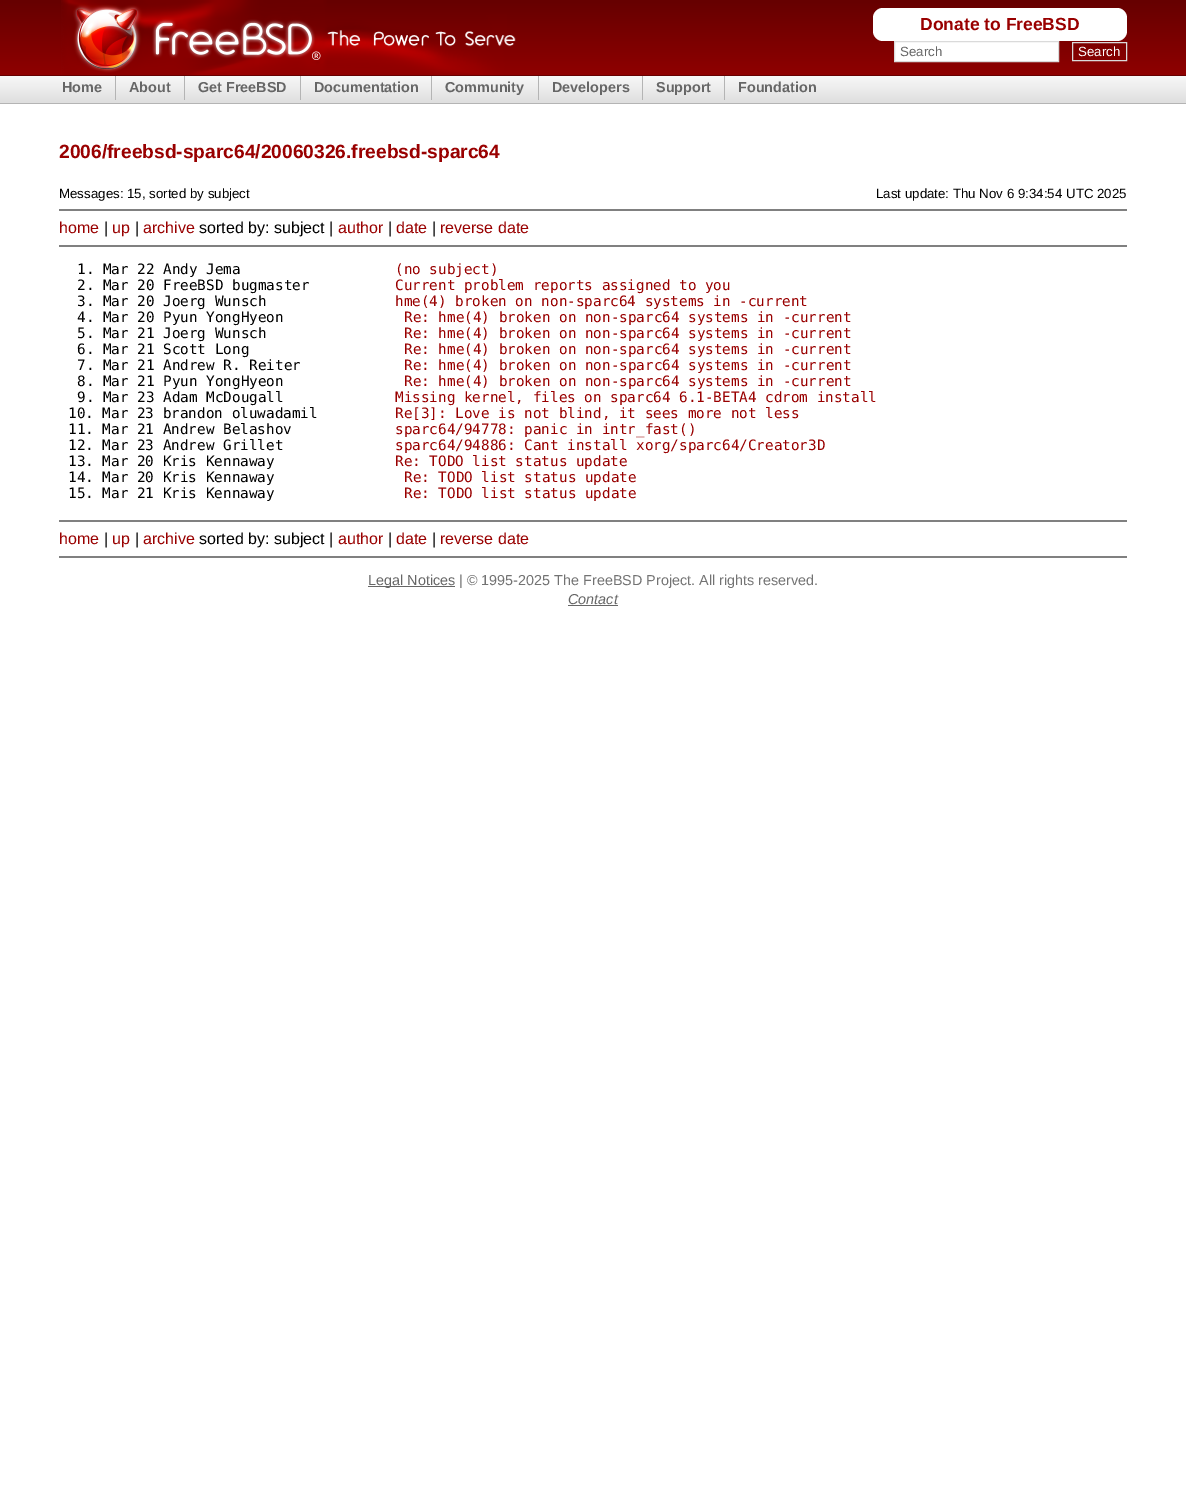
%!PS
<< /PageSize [1186 1491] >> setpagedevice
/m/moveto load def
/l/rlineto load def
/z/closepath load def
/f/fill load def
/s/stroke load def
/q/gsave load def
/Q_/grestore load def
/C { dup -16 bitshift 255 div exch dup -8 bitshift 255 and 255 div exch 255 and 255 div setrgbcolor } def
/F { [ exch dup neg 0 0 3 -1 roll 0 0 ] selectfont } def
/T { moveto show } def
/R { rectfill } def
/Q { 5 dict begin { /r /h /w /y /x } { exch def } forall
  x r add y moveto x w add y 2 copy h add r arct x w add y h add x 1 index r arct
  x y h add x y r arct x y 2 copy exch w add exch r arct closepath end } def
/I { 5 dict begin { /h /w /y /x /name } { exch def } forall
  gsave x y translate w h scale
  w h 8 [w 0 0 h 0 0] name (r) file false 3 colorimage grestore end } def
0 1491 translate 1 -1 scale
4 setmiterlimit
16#FFFFFF C
0 0 1186 1491 R
(1.rgb) 0 0 1186 104 I
(2.rgb) 61 0 455 75 I
873 8 254 33 10 Q f
/LiberationSans-Bold 17.5 F
16#990000 C
(Donate to FreeBSD) 920 30 T
16#FFFFFF C
894.5 41.5 m 164 0 l 0 20 l -164 0 l z q f Q_
16#DADADA C
s
/LiberationSans-Regular 13.3 F
16#666666 C
(Search) 900 56 T
16#DADADA C
1072.5 42.5 54 18 rectstroke
16#FFFFFF C
(Search) 1078 56 T
/LiberationSans-Bold 14.4 F
16#666666 C
(Home) 62 92 T
16#B4B4B4 C
115 76 1 24 R
16#666666 C
(About) 129 92 T
16#B4B4B4 C
184 76 1 24 R
16#666666 C
(Get FreeBSD) 198 92 T
16#B4B4B4 C
300 76 1 24 R
16#666666 C
(Documentation) 314 92 T
16#B4B4B4 C
431 76 1 24 R
16#666666 C
(Community) 445 92 T
16#B4B4B4 C
538 76 1 24 R
16#666666 C
(Developers) 552 92 T
16#B4B4B4 C
642 76 1 24 R
16#666666 C
(Support) 656 92 T
16#B4B4B4 C
724 76 1 24 R
16#666666 C
(Foundation) 738 92 T
/LiberationSans-Bold 19.2 F
16#990000 C
(2006/freebsd-sparc64/20060326.freebsd-sparc64) 59 158 T
/LiberationSans-Regular 13.3 F
16#000000 C
(Messages: 15, sorted by subject) 59 198 T
(Last update: Thu Nov 6 9:34:54 UTC 2025) 876 198 T
16#808080 C
59 209 1068 2 R
/LiberationSans-Regular 16 F
16#990000 C
(home) 59 233 T
16#000000 C
(|) 104 233 T
16#990000 C
(up) 112 233 T
16#000000 C
(|) 135 233 T
16#990000 C
(archive) 143 233 T
16#000000 C
(sorted by: subject |) 199 233 T
16#990000 C
(author) 338 233 T
16#000000 C
(|) 388 233 T
16#990000 C
(date) 396 233 T
16#000000 C
(|) 432 233 T
16#990000 C
(reverse date) 440 233 T
16#808080 C
59 245 1068 2 R
/DejaVuSansMono-Regular 14.3 F
16#000000 C
(1. Mar 22 Andy Jema) 77 274 T
16#990000 C
(\(no subject\)) 395 274 T
16#000000 C
(2. Mar 20 FreeBSD bugmaster) 77 290 T
16#990000 C
(Current problem reports assigned to you) 395 290 T
16#000000 C
(3. Mar 20 Joerg Wunsch) 77 306 T
16#990000 C
(hme\(4\) broken on non-sparc64 systems in -current) 395 306 T
16#000000 C
(4. Mar 20 Pyun YongHyeon) 77 322 T
16#990000 C
(Re: hme\(4\) broken on non-sparc64 systems in -current) 404 322 T
16#000000 C
(5. Mar 21 Joerg Wunsch) 77 338 T
16#990000 C
(Re: hme\(4\) broken on non-sparc64 systems in -current) 404 338 T
16#000000 C
(6. Mar 21 Scott Long) 77 354 T
16#990000 C
(Re: hme\(4\) broken on non-sparc64 systems in -current) 404 354 T
16#000000 C
(7. Mar 21 Andrew R. Reiter) 77 370 T
16#990000 C
(Re: hme\(4\) broken on non-sparc64 systems in -current) 404 370 T
16#000000 C
(8. Mar 21 Pyun YongHyeon) 77 386 T
16#990000 C
(Re: hme\(4\) broken on non-sparc64 systems in -current) 404 386 T
16#000000 C
(9. Mar 23 Adam McDougall) 77 402 T
16#990000 C
(Missing kernel, files on sparc64 6.1-BETA4 cdrom install) 395 402 T
16#000000 C
(10. Mar 23 brandon oluwadamil) 68 418 T
16#990000 C
(Re[3]: Love is not blind, it sees more not less) 395 418 T
16#000000 C
(11. Mar 21 Andrew Belashov) 68 434 T
16#990000 C
(sparc64/94778: panic in intr_fast\(\)) 395 434 T
16#000000 C
(12. Mar 23 Andrew Grillet) 68 450 T
16#990000 C
(sparc64/94886: Cant install xorg/sparc64/Creator3D) 395 450 T
16#000000 C
(13. Mar 20 Kris Kennaway) 68 466 T
16#990000 C
(Re: TODO list status update) 395 466 T
16#000000 C
(14. Mar 20 Kris Kennaway) 68 482 T
16#990000 C
(Re: TODO list status update) 404 482 T
16#000000 C
(15. Mar 21 Kris Kennaway) 68 498 T
16#990000 C
(Re: TODO list status update) 404 498 T
16#808080 C
59 520 1068 2 R
/LiberationSans-Regular 16 F
16#990000 C
(home) 59 544 T
16#000000 C
(|) 104 544 T
16#990000 C
(up) 112 544 T
16#000000 C
(|) 135 544 T
16#990000 C
(archive) 143 544 T
16#000000 C
(sorted by: subject |) 199 544 T
16#990000 C
(author) 338 544 T
16#000000 C
(|) 388 544 T
16#990000 C
(date) 396 544 T
16#000000 C
(|) 432 544 T
16#990000 C
(reverse date) 440 544 T
16#808080 C
59 556 1068 2 R
16#666666 C
368 586 87 1 R
/LiberationSans-Regular 14.4 F
(Legal Notices) 368 585 T
16#737373 C
(| © 1995-2025 The FreeBSD Project. All rights reserved.) 459 585 T
/LiberationSans-Italic 14.4 F
16#666666 C
(Contact) 568 604 T
568 605 50 1 R
showpage
